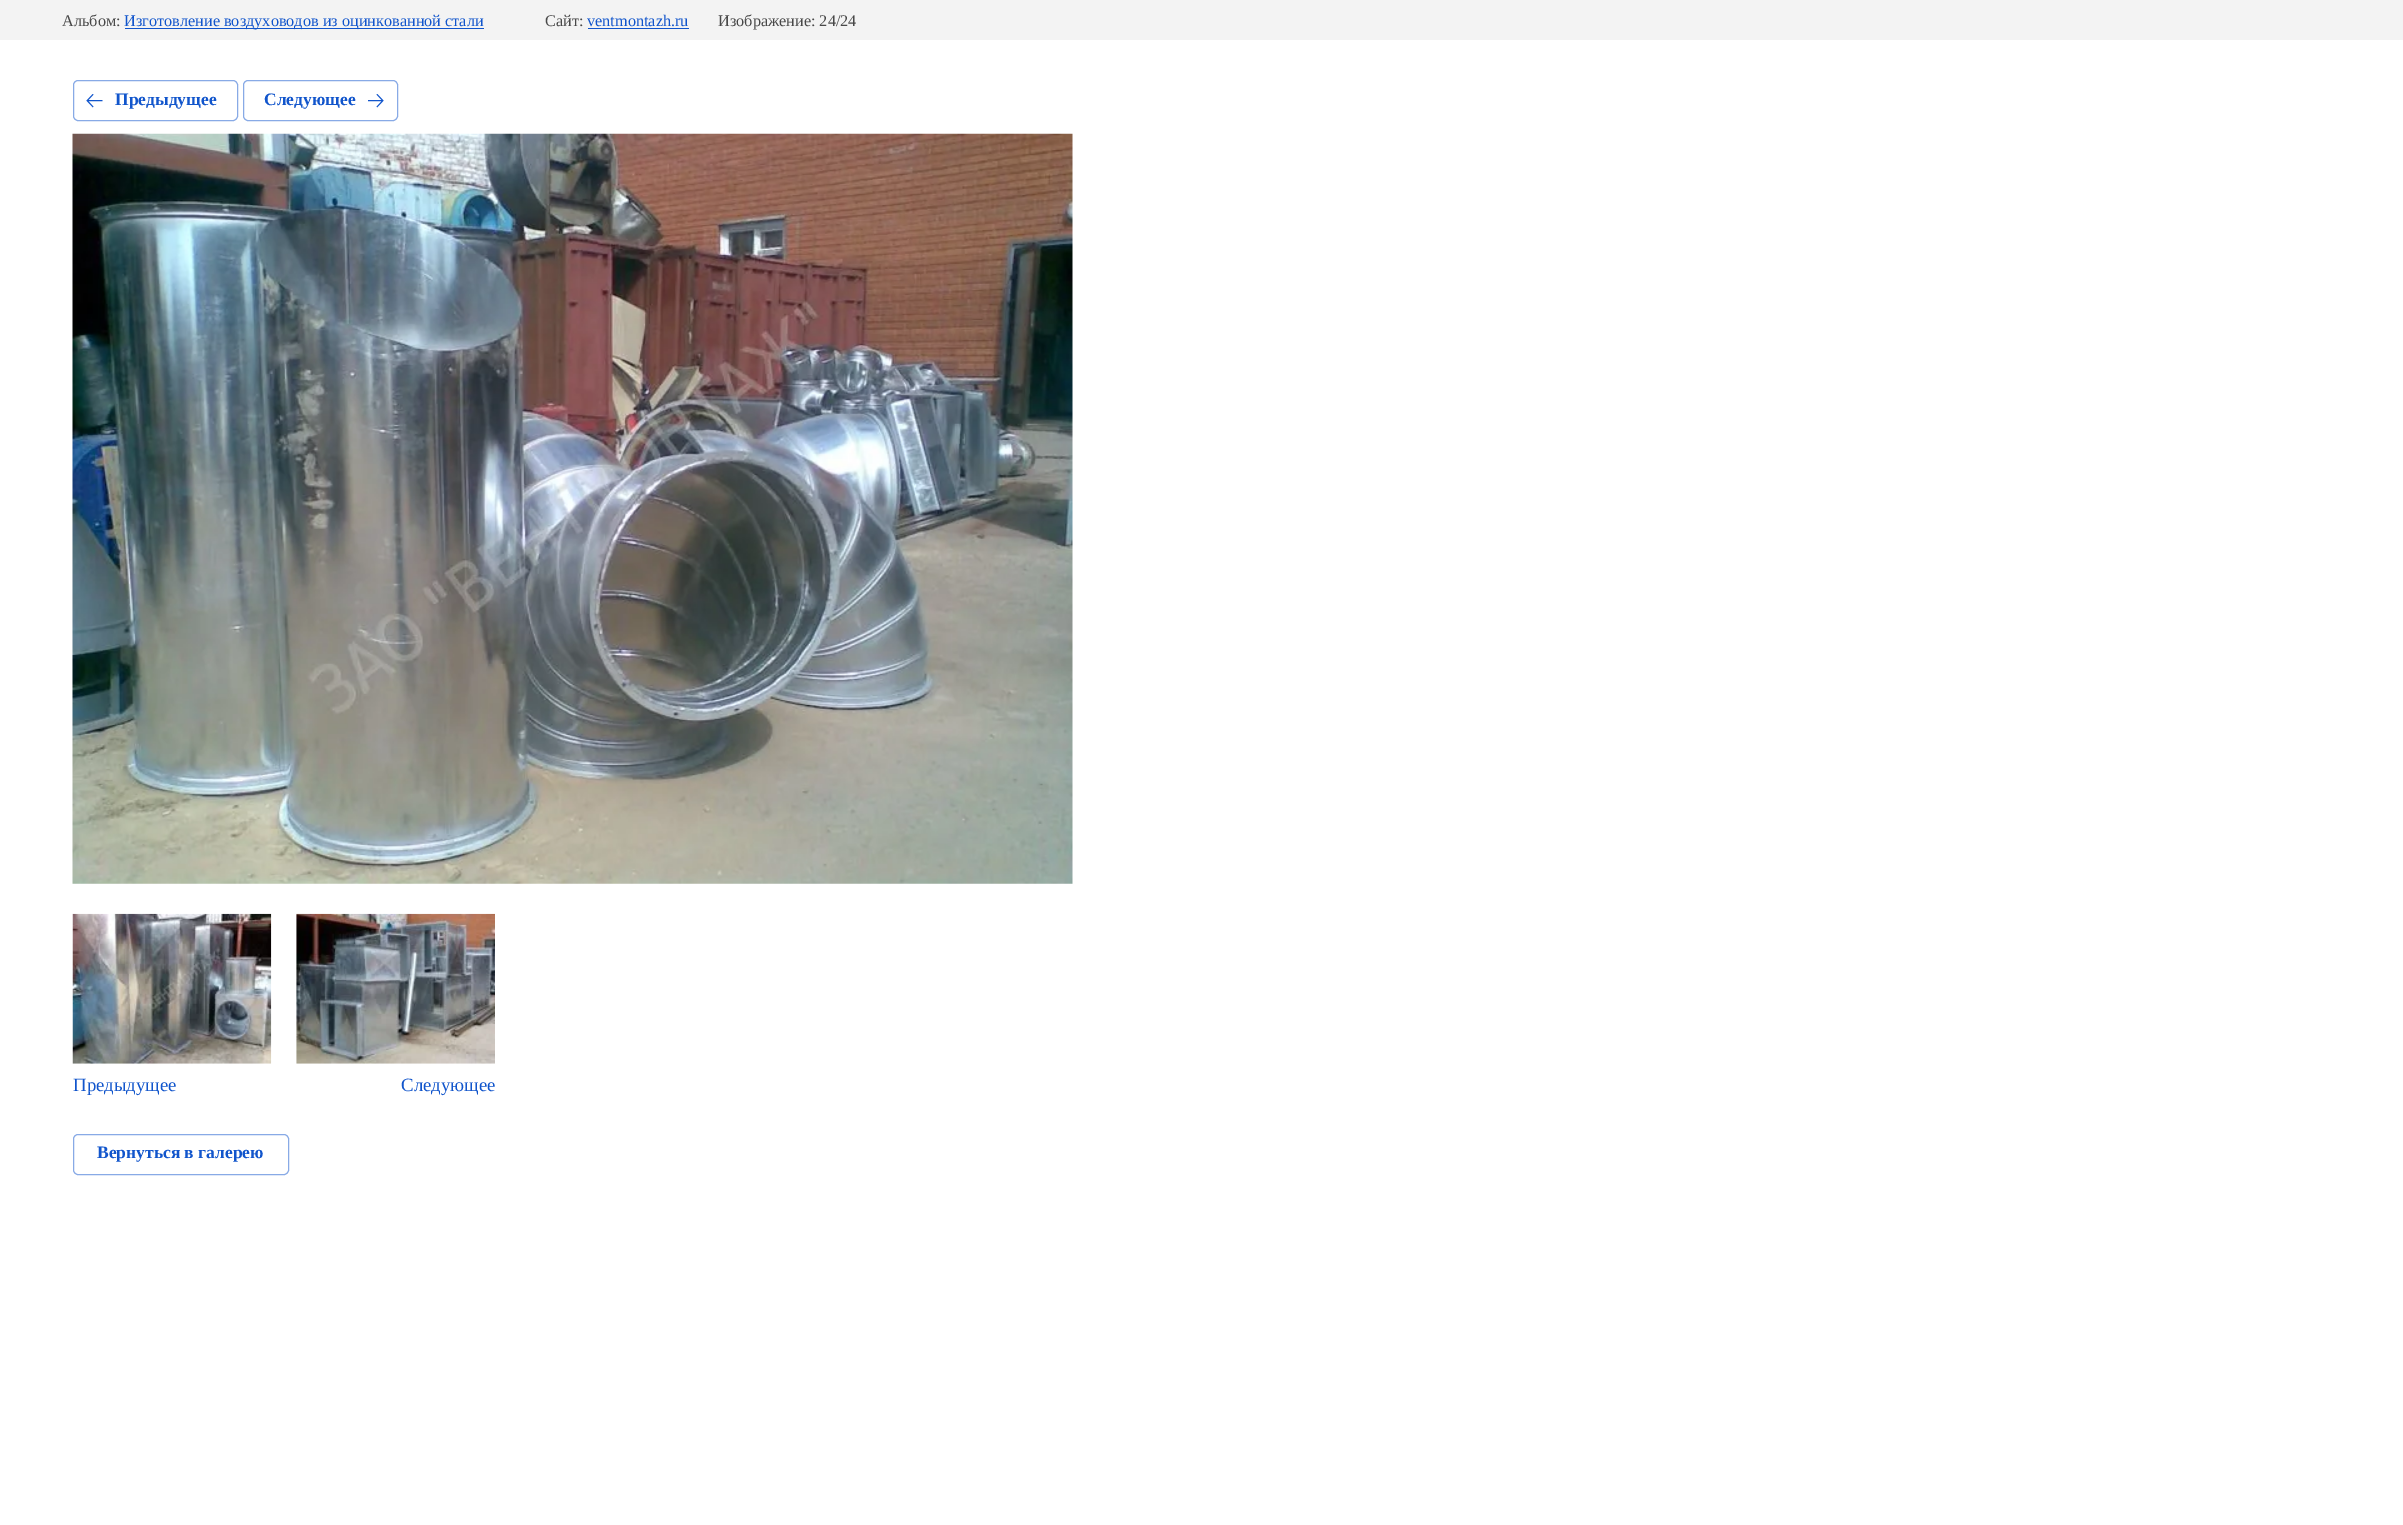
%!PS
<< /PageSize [2403 1525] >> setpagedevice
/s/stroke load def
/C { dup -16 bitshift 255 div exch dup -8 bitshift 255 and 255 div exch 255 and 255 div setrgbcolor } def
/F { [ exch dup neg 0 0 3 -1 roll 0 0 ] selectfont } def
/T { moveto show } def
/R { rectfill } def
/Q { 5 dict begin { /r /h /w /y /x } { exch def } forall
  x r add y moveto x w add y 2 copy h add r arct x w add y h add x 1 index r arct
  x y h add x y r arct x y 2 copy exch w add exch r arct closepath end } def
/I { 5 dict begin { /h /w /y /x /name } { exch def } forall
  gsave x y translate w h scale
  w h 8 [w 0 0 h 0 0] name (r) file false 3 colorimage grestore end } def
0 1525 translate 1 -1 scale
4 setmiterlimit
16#FFFFFF C
0 0 2403 1525 R
16#F3F3F3 C
0 0 2403 40 R
/LiberationSerif-Regular 16.25 F
16#484848 C
(Альбом:) 62 26 T
16#1155CC C
125 28 359 1 R
(Изготовление воздуховодов из оцинкованной стали) 124 26 T
16#484848 C
(Сайт:) 545 26 T
16#1155CC C
(ventmontazh.ru) 587 26 T
588 28 101 1 R
16#484848 C
(Изображение: 24/24) 718 26 T
16#88AAE6 C
73.5 80.5 164 40 4.5 Q s
(1.rgb) 86 94 17 14 I
/LiberationSerif-Bold 17.5 F
16#1155CC C
(Предыдущее) 115 105 T
16#88AAE6 C
243.5 80.5 154 40 4.5 Q s
16#1155CC C
(Следующее) 264 105 T
(2.rgb) 368 94 16 14 I
(3.rgb) 72 133 1001 751 I
(4.rgb) 72 913 200 151 I
/LiberationSerif-Regular 18.75 F
(Предыдущее) 73 1091 T
(5.rgb) 296 913 199 151 I
(Следующее) 401 1091 T
16#88AAE6 C
73.5 1134.5 215 40 4.5 Q s
/LiberationSerif-Bold 17.5 F
16#1155CC C
(Вернуться в галерею) 97 1158 T
showpage
